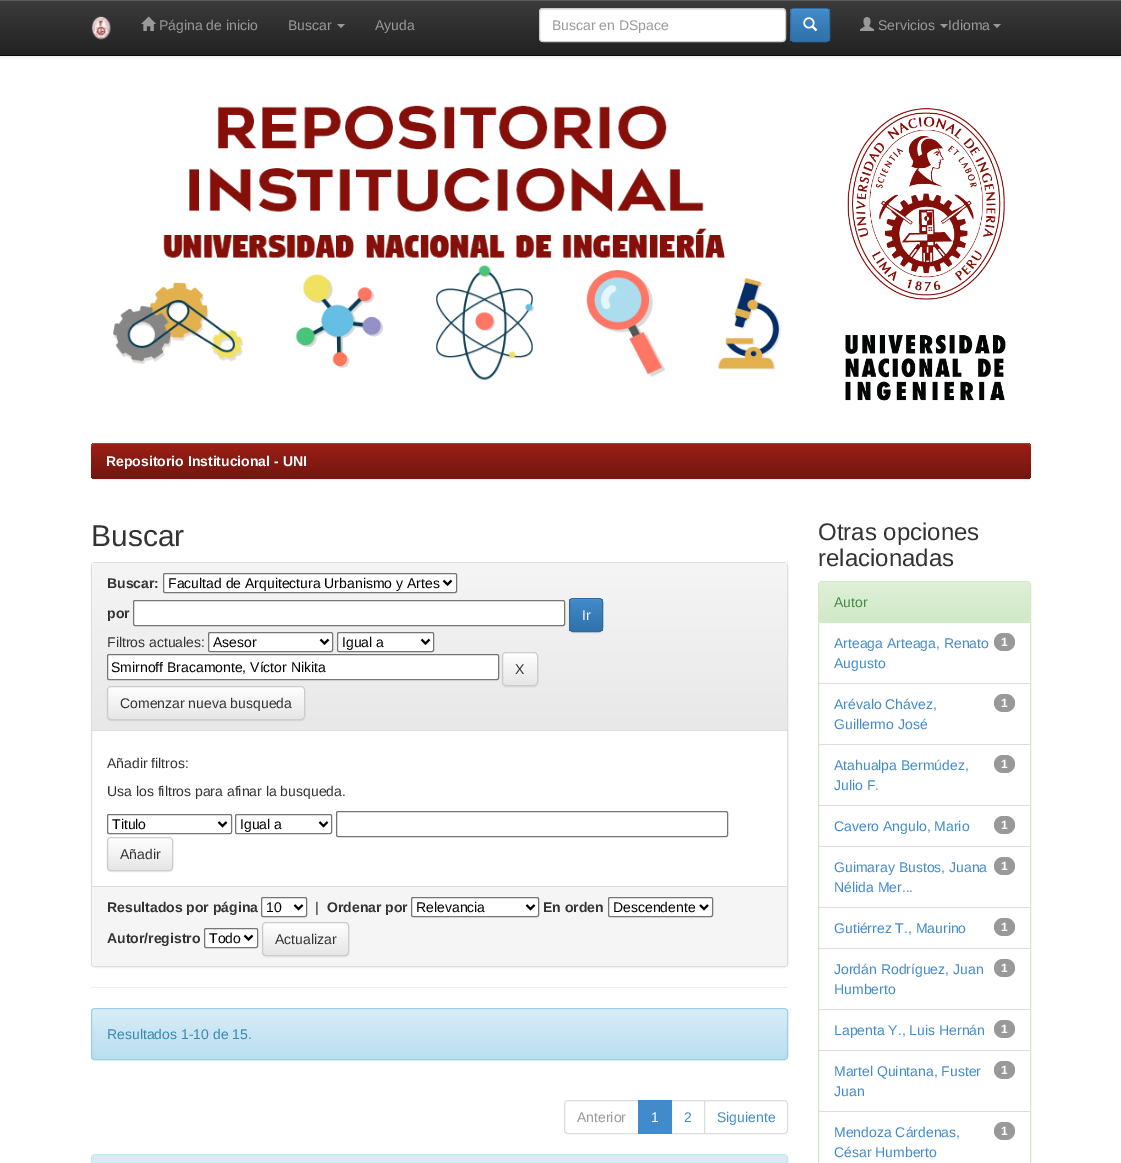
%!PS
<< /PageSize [1121 1163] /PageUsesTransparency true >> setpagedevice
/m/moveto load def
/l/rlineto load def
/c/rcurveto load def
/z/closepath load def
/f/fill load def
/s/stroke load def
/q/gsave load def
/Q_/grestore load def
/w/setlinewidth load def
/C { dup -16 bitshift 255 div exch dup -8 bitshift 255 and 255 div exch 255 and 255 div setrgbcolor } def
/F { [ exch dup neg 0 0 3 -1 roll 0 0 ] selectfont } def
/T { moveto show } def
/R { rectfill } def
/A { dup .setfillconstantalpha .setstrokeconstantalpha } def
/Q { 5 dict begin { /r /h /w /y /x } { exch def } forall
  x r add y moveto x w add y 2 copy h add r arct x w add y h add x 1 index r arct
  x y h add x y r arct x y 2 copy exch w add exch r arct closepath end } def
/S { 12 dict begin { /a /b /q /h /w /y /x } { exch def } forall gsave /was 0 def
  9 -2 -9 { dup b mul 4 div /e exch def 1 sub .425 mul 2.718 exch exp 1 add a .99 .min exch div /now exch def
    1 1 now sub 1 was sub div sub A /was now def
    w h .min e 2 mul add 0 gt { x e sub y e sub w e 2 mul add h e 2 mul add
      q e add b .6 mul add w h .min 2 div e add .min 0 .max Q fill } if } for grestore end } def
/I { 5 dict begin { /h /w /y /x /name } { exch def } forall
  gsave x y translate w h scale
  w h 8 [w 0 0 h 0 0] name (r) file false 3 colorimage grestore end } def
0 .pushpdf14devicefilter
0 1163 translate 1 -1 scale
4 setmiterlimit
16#FFFFFF C
0 0 1121 1163 R
16#000000 C
0 1 1121 56 0 2.5 .07 S
q 0 1 m 1121 0 l 0 54 l -1121 0 l z clip newpath
<< /ShadingType 2 /ColorSpace /DeviceRGB /Coords [561 0 561 55] /Extend [true true] /Function << /FunctionType 2 /Domain [0 1] /C0 [.235 .235 .235] /C1 [.133 .133 .133] /N 1 >> >> shfill Q_
16#595959 C
0 0 1121 1 R
16#080808 C
0 55 1121 1 R
(1.rgb) 91 16 20 24 I
(2.rgb) 141 16 15 15 I
/LiberationSans-Regular 14 F
16#999999 C
(Página de inicio) 159 30 T
(Buscar) 288 30 T
337 24 m 8 0 l -4 4 l z f
(Ayuda) 375 30 T
16#FFFFFF C
539 8 247 34 4 Q f
16#ECECEC C
543 10 m 240 0 l 2 1 l 0 2 l 0 -2 -1 -4 -3 -4 c -239 0 l -2 0 -3 2 -3 4 c 0 -2 1 -3 3 -3 c z f
16#CCCCCC C
539.5 8.5 246 33 3.5 Q s
16#999999 C
(Buscar en DSpace) 552 30 T
q
790 8 40 34 4 Q clip newpath
q 790 9 m 40 0 l 0 32 l -40 0 l z clip newpath
<< /ShadingType 2 /ColorSpace /DeviceRGB /Coords [810 9 810 41] /Extend [true true] /Function << /FunctionType 2 /Domain [0 1] /C0 [.259 .545 .792] /C1 [.188 .443 .663] /N 1 >> >> shfill Q_
Q_
16#5E9CD1 C
794 10 m 27 0 l 5.5 0 7.5 .5 8 2.5 c 0 -5 -4.5 -3.5 -8.5 -3.5 c -21 0 l -3.5 0 -8.5 -1 -8.5 3.5 c .5 -1.5 1.5 -2.5 3 -2.5 c z f
16#2D6CA2 C
790.5 8.5 39 33 3.5 Q s
(3.rgb) 803 17 15 15 I
(4.rgb) 860 17 14 14 I
16#999999 C
(Servicios) 878 30 T
940 24 m 8 0 l -4 4 l z f
(Idioma) 948 30 T
993 24 m 8 0 l -4 4 l z f
(5.rgb) 113 105 668 276 I
(6.rgb) 845 108 161 293 I
16#000000 C
91 444 940 36 4 .5 .07 S
q 91 443 940 36 4 Q clip newpath
<< /ShadingType 2 /ColorSpace /DeviceRGB /Coords [561 443 561 479] /Extend [true true] /Function << /FunctionType 2 /Domain [0 1] /C0 [.612 .122 .086] /C1 [.443 .086 .063] /N 1 >> >> shfill Q_
0.15 A
16#FFFFFF C
95 444 m 932 0 l 2 0 4 2 4 4 c 0 -3 -1 -5 -4 -5 c -932 0 l -3 0 -4 2 -4 5 c 0 -2 2 -4 4 -4 c z f
/LiberationSans-Bold 14 F
1 A
(Repositorio Institucional - UNI) 106 466 T
/LiberationSans-Regular 30 F
16#333333 C
(Buscar) 91 546 T
16#000000 C
91 563 697 405 4 1 .05 S
16#FFFFFF C
91.5 562.5 696 404 3.5 Q q f Q_
16#DDDDDD C
s
q 95 563 m 689 0 l 1.5 0 3 1.5 3 3 c 0 164 l -695 0 l 0 -164 l 0 -1.5 1.5 -3 3 -3 c z clip newpath
<< /ShadingType 2 /ColorSpace /DeviceRGB /Coords [440 563 440 730] /Extend [true true] /Function << /FunctionType 2 /Domain [0 1] /C0 [.961 .961 .961] /C1 [.91 .91 .91] /N 1 >> >> shfill Q_
92 730 695 1 R
/LiberationSans-Bold 14 F
16#333333 C
(Buscar:) 107 588 T
16#FFFFFF C
163.5 573.5 293 19 1.5 Q q f Q_
16#767676 C
s
16#000000 C
2 w
443.5 580.5 m 4 4 l 4 -4 l s
/LiberationSans-Regular 14 F
(Facultad de Arquitectura Urbanismo y Artes) 168 588 T
/LiberationSans-Bold 14 F
16#333333 C
(por) 107 618 T
16#FFFFFF C
133.5 600.5 431 25 1.5 Q q f Q_
16#767676 C
1 w
s
16#000000 C
569 599 34 34 4 .5 .07 S
q
569 598 34 34 4 Q clip newpath
q 569 599 m 34 0 l 0 32 l -34 0 l z clip newpath
<< /ShadingType 2 /ColorSpace /DeviceRGB /Coords [586 599 586 631] /Extend [true true] /Function << /FunctionType 2 /Domain [0 1] /C0 [.259 .545 .792] /C1 [.188 .443 .663] /N 1 >> >> shfill Q_
Q_
16#5E9CD1 C
573 600 m 26 0 l 2 0 3 1 3 3 c 0 -5 -3.5 -4 -7.5 -4 c -17 0 l -4 0 -7.5 -1 -7.5 4 c 0 -2 1 -3 3 -3 c z f
16#2D6CA2 C
569.5 598.5 33 33 3.5 Q s
/LiberationSans-Regular 14 F
16#FFFFFF C
(Ir) 582 620 T
16#333333 C
(Filtros actuales:) 107 647 T
16#FFFFFF C
208.5 632.5 124 19 1.5 Q q f Q_
16#767676 C
s
16#000000 C
2 w
320.5 639.5 m 4 4 l 4 -4 l s
(Asesor) 213 647 T
16#FFFFFF C
337.5 632.5 96 19 1.5 Q q f Q_
16#767676 C
1 w
s
16#000000 C
2 w
421.5 639.5 m 4 4 l 4 -4 l s
(Igual a) 342 647 T
16#FFFFFF C
107.5 654.5 391 25 1.5 Q q f Q_
16#767676 C
1 w
s
16#000000 C
(Smirnoff Bracamonte, Víctor Nikita) 111 672 T
502 653 36 34 4 .5 .07 S
q
502 652 36 34 4 Q clip newpath
q 502 653 m 36 0 l 0 32 l -36 0 l z clip newpath
<< /ShadingType 2 /ColorSpace /DeviceRGB /Coords [520 653 520 685] /Extend [true true] /Function << /FunctionType 2 /Domain [0 1] /C0 [1 1 1] /C1 [.902 .902 .902] /N 1 >> >> shfill Q_
Q_
16#CCCCCC C
502.5 652.5 35 33 3.5 Q s
16#333333 C
(X) 515 674 T
16#000000 C
107 687 198 34 4 .5 .07 S
q
107 686 198 34 4 Q clip newpath
q 107 687 m 198 0 l 0 32 l -198 0 l z clip newpath
<< /ShadingType 2 /ColorSpace /DeviceRGB /Coords [206 687 206 719] /Extend [true true] /Function << /FunctionType 2 /Domain [0 1] /C0 [1 1 1] /C1 [.902 .902 .902] /N 1 >> >> shfill Q_
Q_
16#CCCCCC C
107.5 686.5 197 33 3.5 Q s
16#333333 C
(Comenzar nueva busqueda) 120 708 T
(Añadir filtros:) 107 768 T
(Usa los filtros para afinar la busqueda.) 107 796 T
16#767676 C
107.5 814.5 124 19 1.5 Q s
16#000000 C
2 w
218.5 822 m 4 4 l 4 -4 l s
(Titulo) 112 829 T
16#767676 C
1 w
235.5 814.5 96 19 1.5 Q s
16#000000 C
2 w
319.5 822 m 4 4 l 4 -4 l s
(Igual a) 240 829 T
16#767676 C
1 w
336.5 811.5 391 25 1.5 Q s
16#000000 C
107 838 66 34 4 .5 .07 S
q
107 837 66 34 4 Q clip newpath
q 107 838 m 66 0 l 0 32 l -66 0 l z clip newpath
<< /ShadingType 2 /ColorSpace /DeviceRGB /Coords [140 838 140 870] /Extend [true true] /Function << /FunctionType 2 /Domain [0 1] /C0 [1 1 1] /C1 [.902 .902 .902] /N 1 >> >> shfill Q_
Q_
16#CCCCCC C
107.5 837.5 65 33 3.5 Q s
16#333333 C
(Añadir) 120 859 T
16#F5F5F5 C
92 886 m 695 0 l 0 77 l 0 1.5 -1.5 3 -3 3 c -689 0 l -1.5 0 -3 -1.5 -3 -3 c z f
16#DDDDDD C
92 886 695 1 R
/LiberationSans-Bold 14 F
16#333333 C
(Resultados por página) 107 912 T
16#FFFFFF C
261.5 897.5 45 19 1.5 Q q f Q_
16#767676 C
s
16#000000 C
2 w
294.5 905 m 4 4 l 4 -4 l s
/LiberationSans-Regular 14 F
(10) 266 912 T
16#333333 C
(|) 315 912 T
/LiberationSans-Bold 14 F
(Ordenar por) 327 912 T
16#FFFFFF C
411.5 897.5 127 19 1.5 Q q f Q_
16#767676 C
1 w
s
16#000000 C
2 w
526.5 905 m 4 4 l 4 -4 l s
/LiberationSans-Regular 14 F
(Relevancia) 416 912 T
/LiberationSans-Bold 14 F
16#333333 C
(En orden) 543 912 T
16#FFFFFF C
608.5 897.5 104 19 1.5 Q q f Q_
16#767676 C
1 w
s
16#000000 C
2 w
700 905 m 4 4 l 4 -4 l s
/LiberationSans-Regular 14 F
(Descendente) 613 912 T
/LiberationSans-Bold 14 F
16#333333 C
(Autor/registro) 107 943 T
16#FFFFFF C
204.5 928.5 53 19 1.5 Q q f Q_
16#767676 C
1 w
s
16#000000 C
2 w
244.5 935.5 m 4 4 l 4 -4 l s
/LiberationSans-Regular 14 F
(Todo) 209 943 T
262 923 87 34 4 .5 .07 S
q
262 922 87 34 4 Q clip newpath
q 262 923 m 87 0 l 0 32 l -87 0 l z clip newpath
<< /ShadingType 2 /ColorSpace /DeviceRGB /Coords [306 923 306 955] /Extend [true true] /Function << /FunctionType 2 /Domain [0 1] /C0 [1 1 1] /C1 [.902 .902 .902] /N 1 >> >> shfill Q_
Q_
16#CCCCCC C
1 w
262.5 922.5 86 33 3.5 Q s
16#333333 C
(Actualizar) 275 944 T
16#EEEEEE C
91 987 697 1 R
16#000000 C
91 1009 697 52 4 1 .05 S
q
91 1008 697 52 4 Q clip newpath
q 91 1009 m 697 0 l 0 50 l -697 0 l z clip newpath
<< /ShadingType 2 /ColorSpace /DeviceRGB /Coords [440 1009 440 1059] /Extend [true true] /Function << /FunctionType 2 /Domain [0 1] /C0 [.851 .929 .969] /C1 [.725 .871 .941] /N 1 >> >> shfill Q_
Q_
16#E3F2F9 C
95 1010 m 689 0 l 2 0 3 1 3 3 c 0 -2 -1 -4 -3 -4 c -689 0 l -2 0 -3 2 -3 4 c 0 -2 1 -3 3 -3 c z f
16#9ACFEA C
91.5 1008.5 696 51 3.5 Q s
16#3A87AD C
(Resultados 1-10 de 15.) 107 1039 T
16#DDDDDD C
568 1100.5 m 70.5 0 l 0 33 l -70.5 0 l -2 0 -3.5 -1.5 -3.5 -3.5 c 0 -26 l 0 -2 1.5 -3.5 3.5 -3.5 c z s
16#999999 C
(Anterior) 577 1122 T
16#DDDDDD C
671.5 1100.5 33 33 rectstroke
16#428BCA C
638 1100 34 34 R
16#FFFFFF C
(1) 651 1122 T
16#428BCA C
(2) 684 1122 T
16#FFFFFF C
704.5 1100.5 m 79.5 0 l 2 0 3.5 1.5 3.5 3.5 c 0 26 l 0 2 -1.5 3.5 -3.5 3.5 c -79.5 0 l z q f Q_
16#DDDDDD C
s
16#428BCA C
(Siguiente) 717 1122 T
16#BCE8F1 C
91.5 1154.5 696 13 3.5 Q s
q 95 1155 m 689 0 l 1.5 0 3 1.5 3 3 c 0 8 l -695 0 l 0 -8 l 0 -1.5 1.5 -3 3 -3 c z clip newpath
<< /ShadingType 2 /ColorSpace /DeviceRGB /Coords [440 1155 440 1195] /Extend [true true] /Function << /FunctionType 2 /Domain [0 1] /C0 [.851 .929 .969] /C1 [.769 .89 .953] /N 1 >> >> shfill Q_
/LiberationSans-Regular 24 F
16#333333 C
(Otras opciones) 818 540 T
(relacionadas) 818 566 T
16#D6E9C6 C
818.5 581.5 212 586 3.5 Q s
q 822 582 m 205 0 l 1.5 0 3 1.5 3 3 c 0 37 l -211 0 l 0 -37 l 0 -1.5 1.5 -3 3 -3 c z clip newpath
<< /ShadingType 2 /ColorSpace /DeviceRGB /Coords [925 582 925 622] /Extend [true true] /Function << /FunctionType 2 /Domain [0 1] /C0 [.875 .941 .847] /C1 [.816 .914 .776] /N 1 >> >> shfill Q_
819 622 211 1 R
/LiberationSans-Regular 14 F
16#468847 C
(Autor) 834 607 T
16#DDDDDD C
819 683 211 1 R
16#428BCA C
(Arteaga Arteaga, Renato) 834 648 T
16#999999 C
994 633 21 18 9 Q f
/LiberationSans-Bold 12 F
16#FFFFFF C
(1) 1001 646 T
/LiberationSans-Regular 14 F
16#428BCA C
(Augusto) 834 668 T
16#DDDDDD C
819 744 211 1 R
16#428BCA C
(Arévalo Chávez,) 834 709 T
16#999999 C
994 694 21 18 9 Q f
/LiberationSans-Bold 12 F
16#FFFFFF C
(1) 1001 707 T
/LiberationSans-Regular 14 F
16#428BCA C
(Guillermo José) 834 729 T
16#DDDDDD C
819 805 211 1 R
16#428BCA C
(Atahualpa Bermúdez,) 834 770 T
16#999999 C
994 755 21 18 9 Q f
/LiberationSans-Bold 12 F
16#FFFFFF C
(1) 1001 768 T
/LiberationSans-Regular 14 F
16#428BCA C
(Julio F.) 834 790 T
16#DDDDDD C
819 846 211 1 R
16#428BCA C
(Cavero Angulo, Mario) 834 831 T
16#999999 C
994 816 21 18 9 Q f
/LiberationSans-Bold 12 F
16#FFFFFF C
(1) 1001 829 T
16#DDDDDD C
819 907 211 1 R
/LiberationSans-Regular 14 F
16#428BCA C
(Guimaray Bustos, Juana) 834 872 T
16#999999 C
994 857 21 18 9 Q f
/LiberationSans-Bold 12 F
16#FFFFFF C
(1) 1001 870 T
/LiberationSans-Regular 14 F
16#428BCA C
(Nélida Mer...) 834 892 T
16#DDDDDD C
819 948 211 1 R
16#428BCA C
(Gutiérrez T., Maurino) 834 933 T
16#999999 C
994 918 21 18 9 Q f
/LiberationSans-Bold 12 F
16#FFFFFF C
(1) 1001 931 T
16#DDDDDD C
819 1009 211 1 R
/LiberationSans-Regular 14 F
16#428BCA C
(Jordán Rodríguez, Juan) 834 974 T
16#999999 C
994 959 21 18 9 Q f
/LiberationSans-Bold 12 F
16#FFFFFF C
(1) 1001 972 T
/LiberationSans-Regular 14 F
16#428BCA C
(Humberto) 834 994 T
16#DDDDDD C
819 1050 211 1 R
16#428BCA C
(Lapenta Y., Luis Hernán) 834 1035 T
16#999999 C
994 1020 21 18 9 Q f
/LiberationSans-Bold 12 F
16#FFFFFF C
(1) 1001 1033 T
16#DDDDDD C
819 1111 211 1 R
/LiberationSans-Regular 14 F
16#428BCA C
(Martel Quintana, Fuster) 834 1076 T
16#999999 C
994 1061 21 18 9 Q f
/LiberationSans-Bold 12 F
16#FFFFFF C
(1) 1001 1074 T
/LiberationSans-Regular 14 F
16#428BCA C
(Juan) 834 1096 T
(Mendoza Cárdenas,) 834 1137 T
16#999999 C
994 1122 21 18 9 Q f
/LiberationSans-Bold 12 F
16#FFFFFF C
(1) 1001 1135 T
/LiberationSans-Regular 14 F
16#428BCA C
(César Humberto) 834 1157 T
.poppdf14devicefilter showpage
